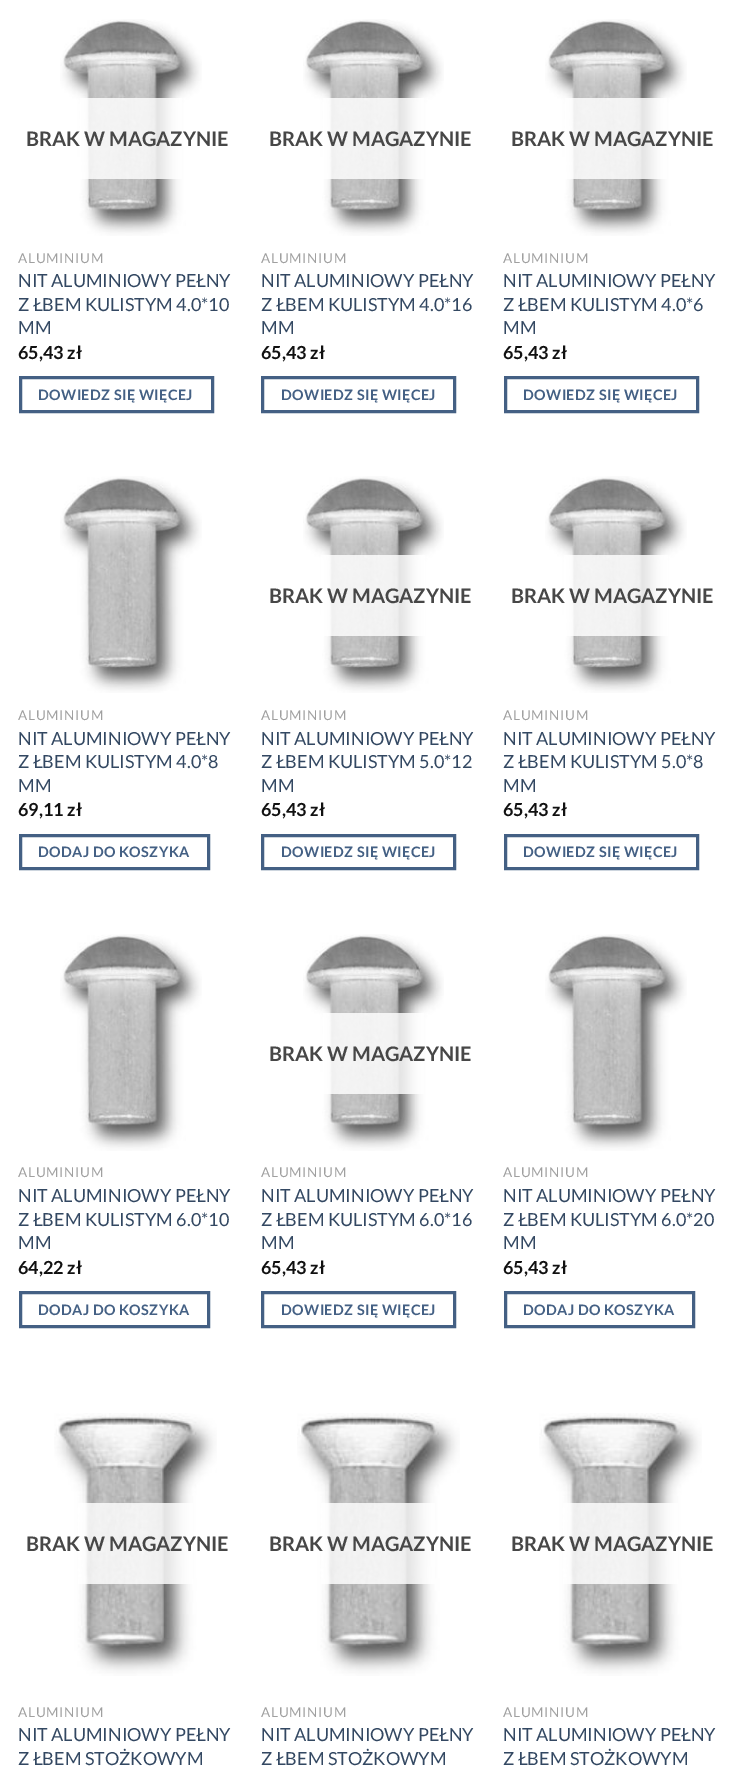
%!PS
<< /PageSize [739 1773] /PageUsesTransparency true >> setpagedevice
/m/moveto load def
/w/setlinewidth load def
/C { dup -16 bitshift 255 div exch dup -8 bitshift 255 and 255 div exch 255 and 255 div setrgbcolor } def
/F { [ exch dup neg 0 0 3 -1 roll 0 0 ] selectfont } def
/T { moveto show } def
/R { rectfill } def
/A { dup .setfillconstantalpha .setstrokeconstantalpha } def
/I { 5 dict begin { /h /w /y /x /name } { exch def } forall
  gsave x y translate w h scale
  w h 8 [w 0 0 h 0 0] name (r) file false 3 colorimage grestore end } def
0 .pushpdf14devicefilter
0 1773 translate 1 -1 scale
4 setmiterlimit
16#FFFFFF C
0 0 739 1773 R
(1.rgb) 60 19 142 217 I
0.81 A
80 98 102 81 R
/Lato-Bold 20 F
1 A
16#474747 C
(BRAK W MAGAZYNIE) 26 146 T
/Lato-Regular 13.5 F
16#A0A0A0 C
18 263 m .75 0 (ALUMINIUM) ashow
/Lato-Regular 18 F
16#334862 C
(NIT ALUMINIOWY PEŁNY) 18 287 T
(Z ŁBEM KULISTYM 4.0*10) 18 311 T
(MM) 18 334 T
/Lato-Bold 18 F
16#111111 C
(65,43 zł) 18 359 T
16#446084 C
3 w
20.5 377.5 192 34 rectstroke
/Lato-Bold 14.4 F
38 400 m .4 0 (DOWIEDZ SIĘ WIĘCEJ) ashow
(2.rgb) 303 19 141 217 I
0.81 A
16#FFFFFF C
323 98 101 81 R
/Lato-Bold 20 F
1 A
16#474747 C
(BRAK W MAGAZYNIE) 269 146 T
/Lato-Regular 13.5 F
16#A0A0A0 C
261 263 m .75 0 (ALUMINIUM) ashow
/Lato-Regular 18 F
16#334862 C
(NIT ALUMINIOWY PEŁNY) 261 287 T
(Z ŁBEM KULISTYM 4.0*16) 261 311 T
(MM) 261 334 T
/Lato-Bold 18 F
16#111111 C
(65,43 zł) 261 359 T
16#446084 C
262.5 377.5 192 34 rectstroke
/Lato-Bold 14.4 F
281 400 m .4 0 (DOWIEDZ SIĘ WIĘCEJ) ashow
(1.rgb) 545 19 142 217 I
0.81 A
16#FFFFFF C
565 98 102 81 R
/Lato-Bold 20 F
1 A
16#474747 C
(BRAK W MAGAZYNIE) 511 146 T
/Lato-Regular 13.5 F
16#A0A0A0 C
503 263 m .75 0 (ALUMINIUM) ashow
/Lato-Regular 18 F
16#334862 C
(NIT ALUMINIOWY PEŁNY) 503 287 T
(Z ŁBEM KULISTYM 4.0*6) 503 311 T
(MM) 503 334 T
/Lato-Bold 18 F
16#111111 C
(65,43 zł) 503 359 T
16#446084 C
505.5 377.5 192 34 rectstroke
/Lato-Bold 14.4 F
523 400 m .4 0 (DOWIEDZ SIĘ WIĘCEJ) ashow
(3.rgb) 60 476 142 217 I
/Lato-Regular 13.5 F
16#A0A0A0 C
18 720 m .75 0 (ALUMINIUM) ashow
/Lato-Regular 18 F
16#334862 C
(NIT ALUMINIOWY PEŁNY) 18 745 T
(Z ŁBEM KULISTYM 4.0*8) 18 768 T
(MM) 18 792 T
/Lato-Bold 18 F
16#111111 C
(69,11 zł) 18 816 T
16#446084 C
20.5 835.5 188 33 rectstroke
/Lato-Bold 14.4 F
38 857 m .4 0 (DODAJ DO KOSZYKA) ashow
(4.rgb) 303 476 141 217 I
0.81 A
16#FFFFFF C
321 555 104 81 R
/Lato-Bold 20 F
1 A
16#474747 C
(BRAK W MAGAZYNIE) 269 603 T
/Lato-Regular 13.5 F
16#A0A0A0 C
261 720 m .75 0 (ALUMINIUM) ashow
/Lato-Regular 18 F
16#334862 C
(NIT ALUMINIOWY PEŁNY) 261 745 T
(Z ŁBEM KULISTYM 5.0*12) 261 768 T
(MM) 261 792 T
/Lato-Bold 18 F
16#111111 C
(65,43 zł) 261 816 T
16#446084 C
262.5 835.5 192 33 rectstroke
/Lato-Bold 14.4 F
281 857 m .4 0 (DOWIEDZ SIĘ WIĘCEJ) ashow
(3.rgb) 545 476 142 217 I
0.81 A
16#FFFFFF C
564 555 104 81 R
/Lato-Bold 20 F
1 A
16#474747 C
(BRAK W MAGAZYNIE) 511 603 T
/Lato-Regular 13.5 F
16#A0A0A0 C
503 720 m .75 0 (ALUMINIUM) ashow
/Lato-Regular 18 F
16#334862 C
(NIT ALUMINIOWY PEŁNY) 503 745 T
(Z ŁBEM KULISTYM 5.0*8) 503 768 T
(MM) 503 792 T
/Lato-Bold 18 F
16#111111 C
(65,43 zł) 503 816 T
16#446084 C
505.5 835.5 192 33 rectstroke
/Lato-Bold 14.4 F
523 857 m .4 0 (DOWIEDZ SIĘ WIĘCEJ) ashow
(1.rgb) 60 934 142 217 I
/Lato-Regular 13.5 F
16#A0A0A0 C
18 1177 m .75 0 (ALUMINIUM) ashow
/Lato-Regular 18 F
16#334862 C
(NIT ALUMINIOWY PEŁNY) 18 1202 T
(Z ŁBEM KULISTYM 6.0*10) 18 1226 T
(MM) 18 1249 T
/Lato-Bold 18 F
16#111111 C
(64,22 zł) 18 1274 T
16#446084 C
20.5 1292.5 188 34 rectstroke
/Lato-Bold 14.4 F
38 1315 m .4 0 (DODAJ DO KOSZYKA) ashow
(2.rgb) 303 934 141 217 I
0.81 A
16#FFFFFF C
323 1013 101 81 R
/Lato-Bold 20 F
1 A
16#474747 C
(BRAK W MAGAZYNIE) 269 1061 T
/Lato-Regular 13.5 F
16#A0A0A0 C
261 1177 m .75 0 (ALUMINIUM) ashow
/Lato-Regular 18 F
16#334862 C
(NIT ALUMINIOWY PEŁNY) 261 1202 T
(Z ŁBEM KULISTYM 6.0*16) 261 1226 T
(MM) 261 1249 T
/Lato-Bold 18 F
16#111111 C
(65,43 zł) 261 1274 T
16#446084 C
262.5 1292.5 192 34 rectstroke
/Lato-Bold 14.4 F
281 1315 m .4 0 (DOWIEDZ SIĘ WIĘCEJ) ashow
(1.rgb) 545 934 142 217 I
/Lato-Regular 13.5 F
16#A0A0A0 C
503 1177 m .75 0 (ALUMINIUM) ashow
/Lato-Regular 18 F
16#334862 C
(NIT ALUMINIOWY PEŁNY) 503 1202 T
(Z ŁBEM KULISTYM 6.0*20) 503 1226 T
(MM) 503 1249 T
/Lato-Bold 18 F
16#111111 C
(65,43 zł) 503 1274 T
16#446084 C
505.5 1292.5 188 34 rectstroke
/Lato-Bold 14.4 F
523 1315 m .4 0 (DODAJ DO KOSZYKA) ashow
(5.rgb) 54 1413 163 263 I
0.81 A
16#FFFFFF C
78 1503 115 81 R
/Lato-Bold 20 F
1 A
16#474747 C
(BRAK W MAGAZYNIE) 26 1551 T
/Lato-Regular 13.5 F
16#A0A0A0 C
18 1717 m .75 0 (ALUMINIUM) ashow
/Lato-Regular 18 F
16#334862 C
(NIT ALUMINIOWY PEŁNY) 18 1741 T
(Z ŁBEM STOŻKOWYM) 18 1765 T
(6.rgb) 297 1413 163 263 I
0.81 A
16#FFFFFF C
321 1503 114 81 R
/Lato-Bold 20 F
1 A
16#474747 C
(BRAK W MAGAZYNIE) 269 1551 T
/Lato-Regular 13.5 F
16#A0A0A0 C
261 1717 m .75 0 (ALUMINIUM) ashow
/Lato-Regular 18 F
16#334862 C
(NIT ALUMINIOWY PEŁNY) 261 1741 T
(Z ŁBEM STOŻKOWYM) 261 1765 T
(5.rgb) 539 1413 163 263 I
0.81 A
16#FFFFFF C
563 1503 115 81 R
/Lato-Bold 20 F
1 A
16#474747 C
(BRAK W MAGAZYNIE) 511 1551 T
/Lato-Regular 13.5 F
16#A0A0A0 C
503 1717 m .75 0 (ALUMINIUM) ashow
/Lato-Regular 18 F
16#334862 C
(NIT ALUMINIOWY PEŁNY) 503 1741 T
(Z ŁBEM STOŻKOWYM) 503 1765 T
.poppdf14devicefilter showpage
